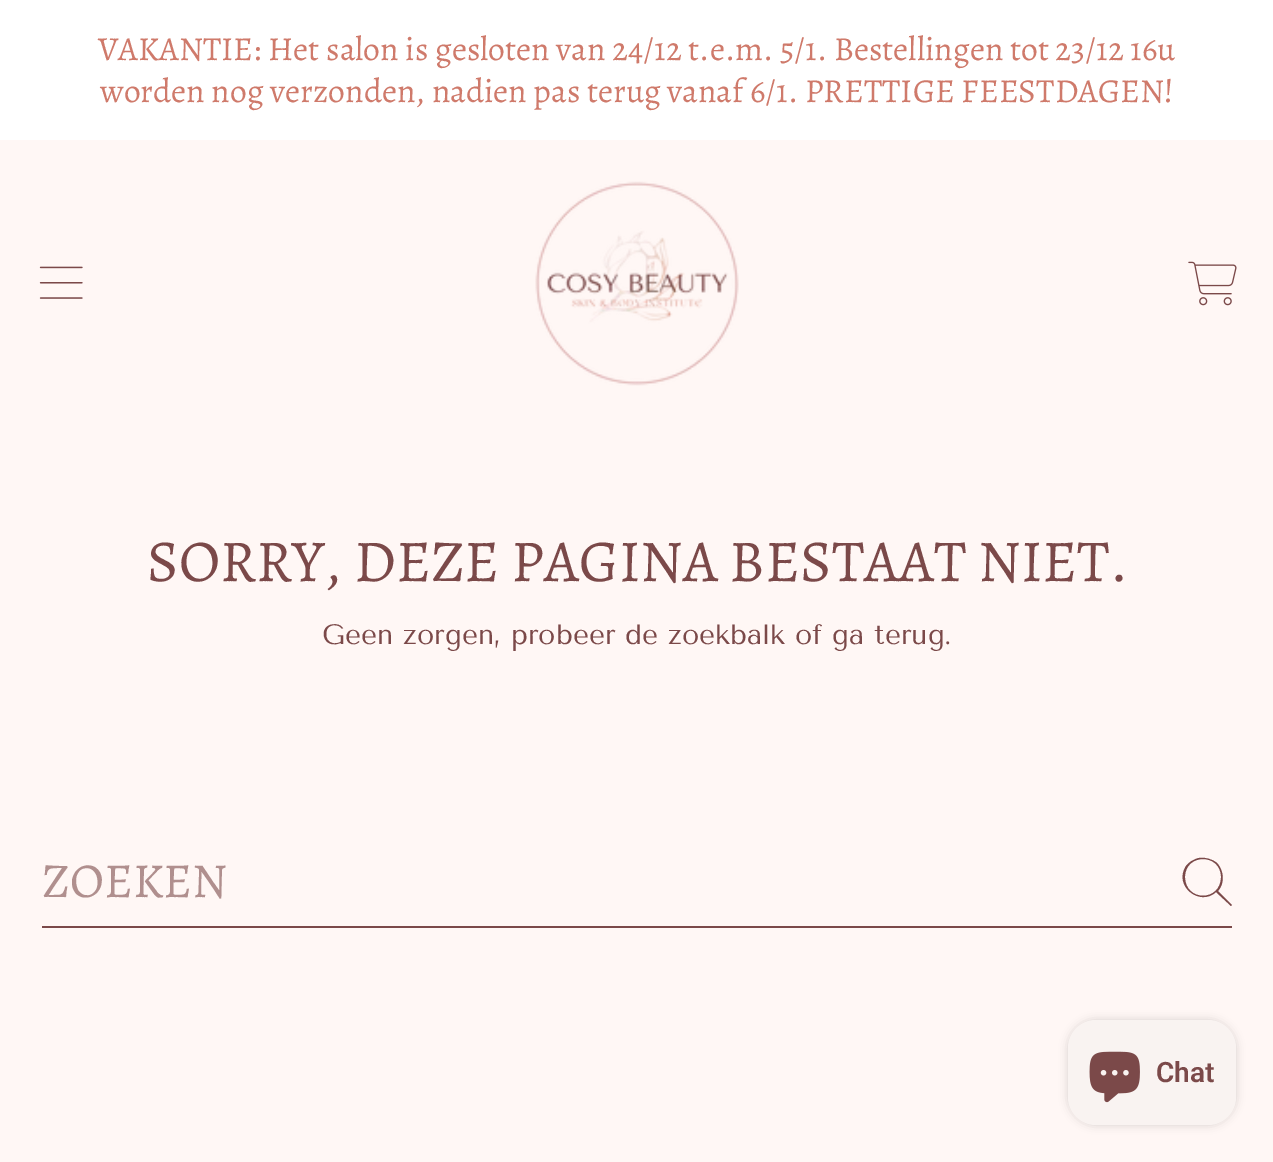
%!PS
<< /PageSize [1273 1162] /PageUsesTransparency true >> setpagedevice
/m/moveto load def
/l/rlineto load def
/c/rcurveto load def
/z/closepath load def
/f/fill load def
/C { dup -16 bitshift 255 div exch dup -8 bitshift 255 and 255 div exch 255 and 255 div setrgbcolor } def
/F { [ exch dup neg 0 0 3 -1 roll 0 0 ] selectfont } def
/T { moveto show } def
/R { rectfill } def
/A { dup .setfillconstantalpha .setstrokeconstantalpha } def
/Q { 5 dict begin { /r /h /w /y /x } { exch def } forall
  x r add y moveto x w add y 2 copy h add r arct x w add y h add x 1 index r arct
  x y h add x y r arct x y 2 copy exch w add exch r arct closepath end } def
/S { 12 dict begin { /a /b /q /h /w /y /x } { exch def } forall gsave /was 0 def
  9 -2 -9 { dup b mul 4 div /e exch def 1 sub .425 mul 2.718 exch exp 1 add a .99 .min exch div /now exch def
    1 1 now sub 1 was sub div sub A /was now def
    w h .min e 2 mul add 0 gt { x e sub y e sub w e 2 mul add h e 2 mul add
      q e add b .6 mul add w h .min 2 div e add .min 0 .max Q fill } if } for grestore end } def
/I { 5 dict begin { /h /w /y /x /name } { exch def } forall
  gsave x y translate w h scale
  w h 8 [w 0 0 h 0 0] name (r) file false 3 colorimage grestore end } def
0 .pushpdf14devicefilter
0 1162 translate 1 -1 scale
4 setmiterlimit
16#FFF7F5 C
0 0 1273 1162 R
16#FFFFFF C
0 0 1273 140 R
/Alegreya-Regular 33.6 F
16#CF7A6B C
(VAKANTIE: Het salon is gesloten van 24/12 t.e.m. 5/1. Bestellingen tot 23/12 16u) 98 60 T
(worden nog verzonden, nadien pas terug vanaf 6/1. PRETTIGE FEESTDAGEN!) 100 102 T
(1.rgb) 39 266 44 33 I
(2.rgb) 535 181 204 205 I
(3.rgb) 1188 261 49 45 I
/Alegreya-Regular 59.5 F
16#7B4949 C
(SORRY, DEZE PAGINA BESTAAT NIET.) 147 581 T
/TenorSans-Regular 28 F
(Geen zorgen, probeer de zoekbalk of ga terug.) 322 644 T
42 926 1190 2 R
/Alegreya-Regular 49 F
16#B08F8E C
(ZOEKEN) 42 897 T
16#7B4949 C
1221 877 m 0 -24 -36 -24 -36 0 c 0 25 36 25 36 0 c z 1216 892 m -16 15 -43 -6 -30 -26 c 3 -4 8 -7 13 -8 c 6 -1 13 1 18 5 c 7 8 8 20 1 28 c 14 14 l -1 1 l z f
16#000000 C
1068 1020 168 105 28 4.5 .15 S
16#F9F3F1 C
1068 1020 168 105 28 Q f
(4.rgb) 1089 1051 51 52 I
/Roboto-SemiBold 28 F
16#7B4949 C
(Chat) 1156 1082 T
.poppdf14devicefilter showpage
